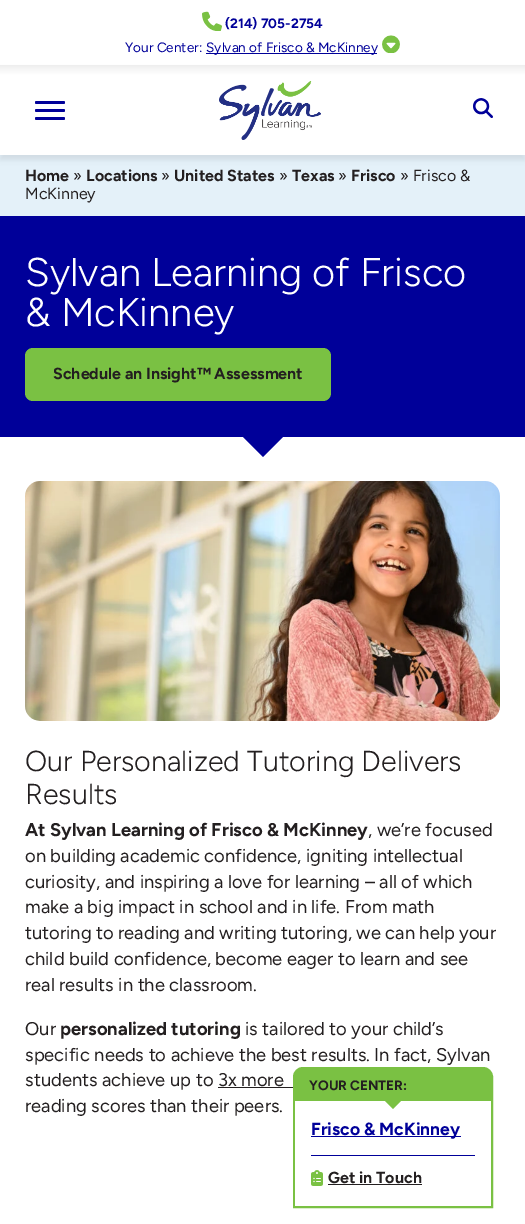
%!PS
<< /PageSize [525 1224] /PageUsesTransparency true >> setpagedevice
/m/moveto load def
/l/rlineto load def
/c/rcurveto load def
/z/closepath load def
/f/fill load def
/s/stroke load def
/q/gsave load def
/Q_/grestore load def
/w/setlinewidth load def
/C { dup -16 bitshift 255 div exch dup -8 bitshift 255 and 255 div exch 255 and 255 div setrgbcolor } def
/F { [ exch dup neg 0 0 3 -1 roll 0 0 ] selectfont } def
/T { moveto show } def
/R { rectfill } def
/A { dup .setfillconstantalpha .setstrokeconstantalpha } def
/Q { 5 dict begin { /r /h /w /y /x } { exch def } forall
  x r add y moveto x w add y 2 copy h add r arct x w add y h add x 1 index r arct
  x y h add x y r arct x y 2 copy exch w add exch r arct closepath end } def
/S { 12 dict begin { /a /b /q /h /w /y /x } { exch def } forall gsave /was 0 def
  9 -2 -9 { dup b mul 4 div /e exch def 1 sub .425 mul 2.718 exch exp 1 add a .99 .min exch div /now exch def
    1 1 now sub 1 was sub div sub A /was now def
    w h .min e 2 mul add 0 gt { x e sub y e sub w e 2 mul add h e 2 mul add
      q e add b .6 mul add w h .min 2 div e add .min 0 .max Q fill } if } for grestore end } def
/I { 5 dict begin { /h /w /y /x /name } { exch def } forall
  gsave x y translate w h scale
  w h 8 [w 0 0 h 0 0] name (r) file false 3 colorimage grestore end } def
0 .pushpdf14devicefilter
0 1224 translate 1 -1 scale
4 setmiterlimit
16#FFFFFF C
0 0 525 1224 R
(1.rgb) 202 11 20 20 I
/Figtree-Bold 13.6 F
16#000099 C
(\(214\) 705-2754) 225 28 T
/Figtree-Regular 13.6 F
(Your Center:) 125 52 T
206 53 171 1 R
(Sylvan of Frisco & McKinney) 206 52 T
(2.rgb) 382 35 18 18 I
16#E4F1F9 C
0 155 525 61 R
16#000000 C
0 70 525 90 0 2.5 .07 S
q 0 65 m 525 0 l 0 90 l -525 0 l z clip newpath
<< /ShadingType 2 /ColorSpace /DeviceRGB /Coords [263 65 263 155] /Extend [true true] /Function << /FunctionType 3 /Domain [0 1] /Functions [<< /FunctionType 2 /Domain [0 1] /C0 [.933 .933 .933] /C1 [1 1 1] /N 1 >> << /FunctionType 2 /Domain [0 1] /C0 [1 1 1] /C1 [1 1 1] /N 1 >>] /Bounds [.11] /Encode [0 1 0 1] >> >> shfill Q_
16#000099 C
35 101 30 3 1.5 Q f
35 109 30 3 1.5 Q f
35 117 30 3 1.5 Q f
(3.rgb) 219 81 102 59 I
(4.rgb) 473 98 20 20 I
/Figtree-Bold 16 F
16#231F20 C
(Home) 25 181 T
/Figtree-Regular 16 F
(») 73 181 T
/Figtree-Bold 16 F
(Locations) 86 181 T
/Figtree-Regular 16 F
(») 161 181 T
/Figtree-Bold 16 F
(United States) 174 181 T
/Figtree-Regular 16 F
(») 279 181 T
/Figtree-Bold 16 F
(Texas) 292 181 T
/Figtree-Regular 16 F
(») 338 181 T
/Figtree-Bold 16 F
(Frisco) 351 181 T
/Figtree-Regular 16 F
(» Frisco &) 400 181 T
(McKinney) 25 199 T
16#000099 C
0 216 525 221 R
/Figtree-Light 40 F
16#FFFFFF C
(Sylvan Learning of Frisco) 25 286 T
(& McKinney) 25 326 T
16#7AC143 C
25 348 306 53 8 Q f
/Figtree-Bold 16 F
16#231F20 C
(Schedule an Insight™ Assessment) 53 379 T
16#000099 C
243 437 m 40 0 l -20 20 l z f
(5.rgb) 25 481 475 240 I
/Figtree-Light 28.75 F
16#231F20 C
(Our Personalized Tutoring Delivers) 25 771 T
(Results) 25 804 T
/Figtree-Bold 18.4 F
(At Sylvan Learning of Frisco & McKinney) 25 836 T
/Figtree-Regular 18.4 F
(, we’re focused) 368 836 T
(on building academic confidence, igniting intellectual) 25 862 T
(curiosity, and inspiring a love for learning – all of which) 25 888 T
(make a big impact in school and in life. From math) 25 913 T
(tutoring to reading and writing tutoring, we can help your) 25 939 T
(child build confidence, become eager to learn and see) 25 965 T
(real results in the classroom.) 25 991 T
(Our) 25 1035 T
/Figtree-Bold 18.4 F
(personalized tutoring) 60 1035 T
/Figtree-Regular 18.4 F
(is tailored to your child’s) 245 1035 T
(specific needs to achieve the best results. In fact, Sylvan) 25 1061 T
(students achieve up to 3x more) 25 1086 T
218 1087 75 1 R
(reading scores than their peers.) 25 1112 T
16#7AC143 C
303 1068 m 180 0 l 5 0 9 4 9 9 c 0 130 l -198 0 l 0 -130 l 0 -5 4 -9 9 -9 c z q f Q_
2 w
s
/Figtree-Bold 13.6 F
16#231F20 C
(YOUR CENTER:) 309 1090 T
16#FFFFFF C
295 1101 196 105 R
16#7AC143 C
383 1099 m 20 0 l -10 10 l z f
16#000099 C
311 1155 164 1 R
311 1136 150 1 R
/Figtree-Bold 17.5 F
(Frisco & McKinney) 311 1135 T
(6.rgb) 311 1170 12 16 I
/Figtree-Bold 16 F
16#231F20 C
(Get in Touch) 328 1183 T
328 1184 94 1 R
.poppdf14devicefilter showpage
